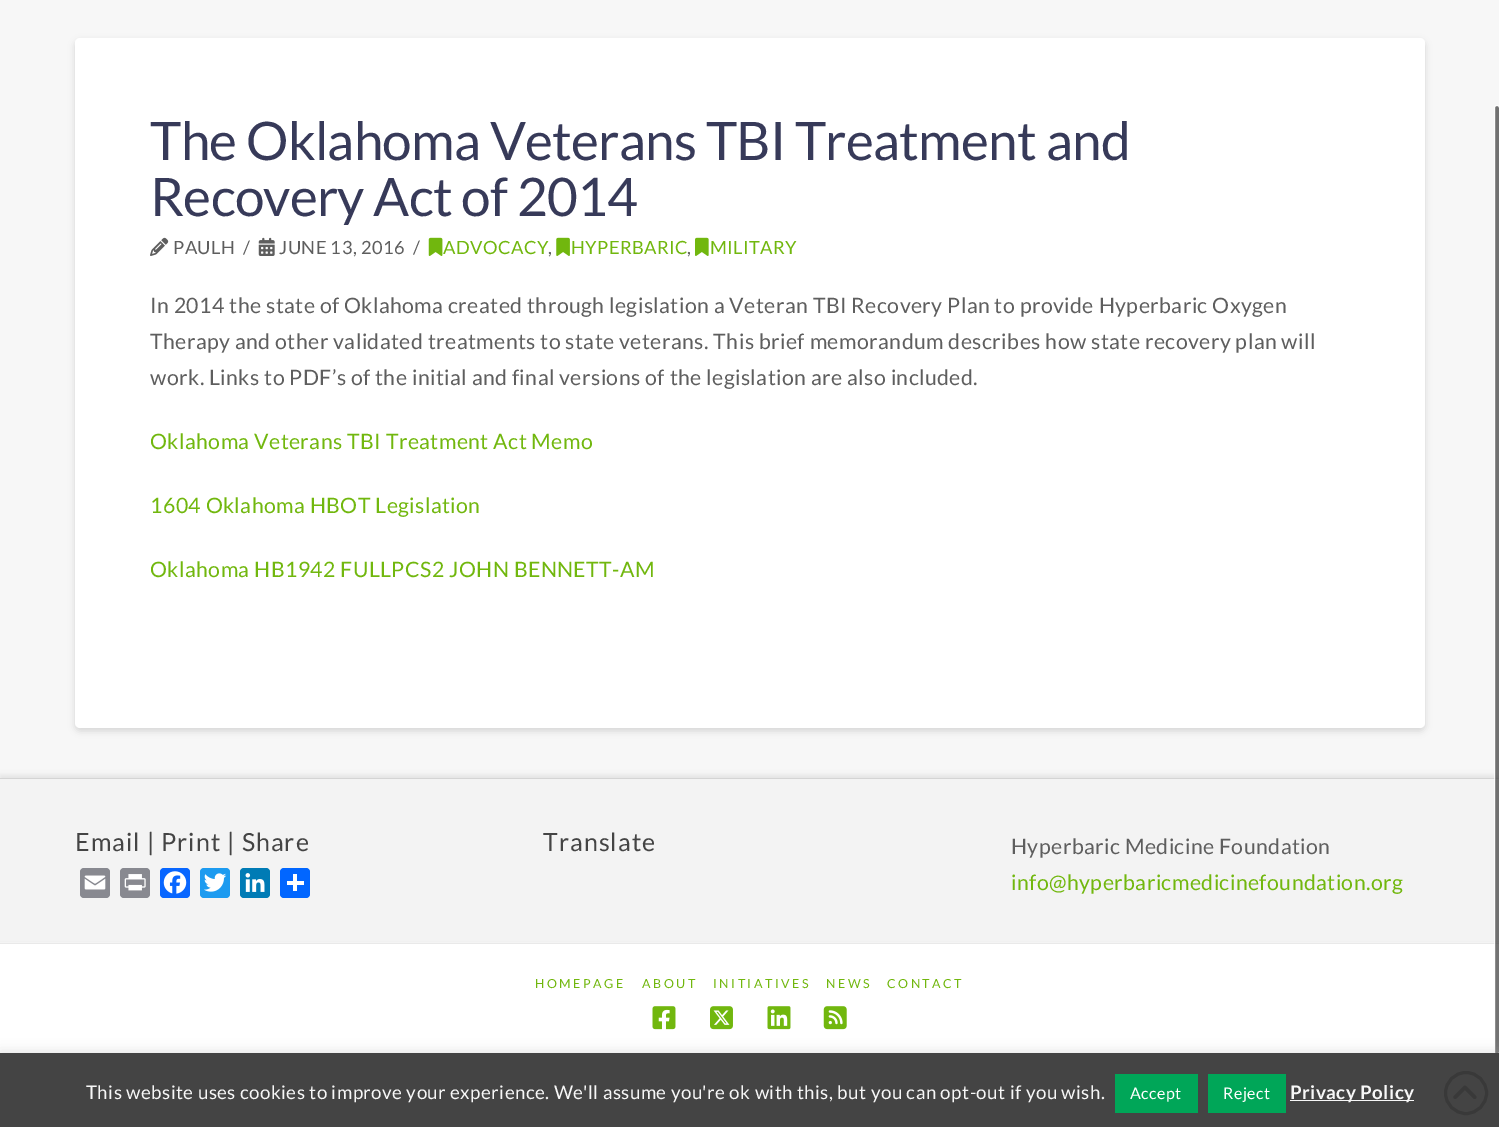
%!PS
<< /PageSize [1499 1127] /PageUsesTransparency true >> setpagedevice
/m/moveto load def
/f/fill load def
/s/stroke load def
/w/setlinewidth load def
/C { dup -16 bitshift 255 div exch dup -8 bitshift 255 and 255 div exch 255 and 255 div setrgbcolor } def
/F { [ exch dup neg 0 0 3 -1 roll 0 0 ] selectfont } def
/R { rectfill } def
/A { dup .setfillconstantalpha .setstrokeconstantalpha } def
/O { newpath 0 360 arc closepath } def
/Q { 5 dict begin { /r /h /w /y /x } { exch def } forall
  x r add y moveto x w add y 2 copy h add r arct x w add y h add x 1 index r arct
  x y h add x y r arct x y 2 copy exch w add exch r arct closepath end } def
/S { 12 dict begin { /a /b /q /h /w /y /x } { exch def } forall gsave /was 0 def
  9 -2 -9 { dup b mul 4 div /e exch def 1 sub .425 mul 2.718 exch exp 1 add a .99 .min exch div /now exch def
    1 1 now sub 1 was sub div sub A /was now def
    w h .min e 2 mul add 0 gt { x e sub y e sub w e 2 mul add h e 2 mul add
      q e add b .6 mul add w h .min 2 div e add .min 0 .max Q fill } if } for grestore end } def
/I { 5 dict begin { /h /w /y /x /name } { exch def } forall
  gsave x y translate w h scale
  w h 8 [w 0 0 h 0 0] name (r) file false 3 colorimage grestore end } def
0 .pushpdf14devicefilter
0 1127 translate 1 -1 scale
4 setmiterlimit
16#F7F7F7 C
0 0 1499 1127 R
16#000000 C
75 41 1350 690 5 3.5 .13 S
16#FFFFFF C
75 38 1350 690 5 Q f
/Lato-Regular 53.1 F
16#373A59 C
150 160 m -.75 0 (The Oklahoma Veterans TBI Treatment and) ashow
150 216 m -.75 0 (Recovery Act of 2014) ashow
(1.rgb) 150 237 19 19 I
/Lato-Regular 18.25 F
16#5E5E5E C
173 254 m .43 0 (PAULH) ashow
243 254 m .43 0 (/) ashow
(2.rgb) 258 237 17 19 I
279 254 m .43 0 (JUNE 13, 2016) ashow
413 254 m .43 0 (/) ashow
(3.rgb) 428 237 15 19 I
16#71B70E C
443 254 m .43 0 (ADVOCACY) ashow
16#5E5E5E C
548 254 m .43 0 (,) ashow
(4.rgb) 556 237 14 19 I
16#71B70E C
571 254 m .43 0 (HYPERBARIC) ashow
16#5E5E5E C
687 254 m .43 0 (,) ashow
(5.rgb) 695 237 14 19 I
16#71B70E C
710 254 m .43 0 (MILITARY) ashow
/Lato-Regular 21.25 F
16#5E5E5E C
150 313 m .43 0 (In 2014 the state of Oklahoma created through legislation a Veteran TBI Recovery Plan to provide Hyperbaric Oxygen) ashow
150 349 m .43 0 (Therapy and other validated treatments to state veterans. This brief memorandum describes how state recovery plan will) ashow
150 385 m .43 0 (work. Links to PDF’s of the initial and final versions of the legislation are also included.) ashow
16#71B70E C
150 449 m .43 0 (Oklahoma Veterans TBI Treatment Act Memo) ashow
150 513 m .43 0 (1604 Oklahoma HBOT Legislation) ashow
150 577 m .43 0 (Oklahoma HB1942 FULLPCS2 JOHN BENNETT-AM) ashow
16#000000 C
0 775 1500 165 0 2.5 .07 S
16#F3F3F3 C
0 779 1499 162 R
16#D4D4D4 C
0 778 1499 1 R
/Lato-Regular 25 F
16#444444 C
75 851 m 1.05 0 (Email | Print | Share) ashow
16#888990 C
80 868 30 30 4 Q f
(6.rgb) 84 875 22 15 I
120 868 30 30 4 Q f
(7.rgb) 124 874 22 17 I
16#0866FF C
160 868 30 30 4 Q f
(8.rgb) 163 871 24 23 I
16#1D9BF0 C
200 868 30 30 4 Q f
(9.rgb) 204 873 23 19 I
16#007BB5 C
240 868 30 30 4 Q f
(10.rgb) 245 873 20 19 I
16#0166FF C
280 868 30 30 4 Q f
16#FFFFFF C
293 874 4 17 R
287 881 17 4 R
16#444444 C
543 851 m 1.05 0 (Translate) ashow
/Lato-Regular 21.25 F
16#5E5E5E C
1011 854 m .43 0 (Hyperbaric Medicine Foundation) ashow
16#71B70E C
1011 890 m .43 0 (info@hyperbaricmedicinefoundation.org) ashow
16#FFFFFF C
0 944 1499 109 R
16#E9E9E9 C
0 943 1499 1 R
/Lato-Regular 12.5 F
16#71B70E C
535 988 m 2.5 0 (HOMEPAGE) ashow
642 988 m 2.5 0 (ABOUT) ashow
713 988 m 2.5 0 (INITIATIVES) ashow
826 988 m 2.5 0 (NEWS) ashow
887 988 m 2.5 0 (CONTACT) ashow
(11.rgb) 652 1006 24 24 I
(12.rgb) 710 1006 23 24 I
(13.rgb) 767 1006 24 24 I
(14.rgb) 823 1006 24 24 I
0.74 A
16#424242 C
1495 106 4 948 2 Q f
16#FFFFFF C
1494.5 105.5 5 949 2.5 Q s
1 A
16#ACABAB C
0 1051 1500 75 0 6 .3 S
16#444444 C
0 1053 1499 74 R
16#393939 C
3 w
1466 1093 20.5 O s
(15.rgb) 1453 1085 24 14 I
/Lato-Regular 18.75 F
16#F7F7F7 C
86 1099 m .43 0 (This website uses cookies to improve your experience. We'll assume you're ok with this, but you can opt-out if you wish.) ashow
16#00A658 C
1115 1074 83 39 R
/Lato-Regular 16 F
16#FFFFFF C
1130 1099 m .43 0 (Accept) ashow
16#00A658 C
1208 1074 78 39 R
16#FFFFFF C
1223 1099 m .43 0 (Reject) ashow
16#F7F7F7 C
1290 1100 124 1 R
/Lato-Bold 18.75 F
1290 1099 m .43 0 (Privacy Policy) ashow
.poppdf14devicefilter showpage
